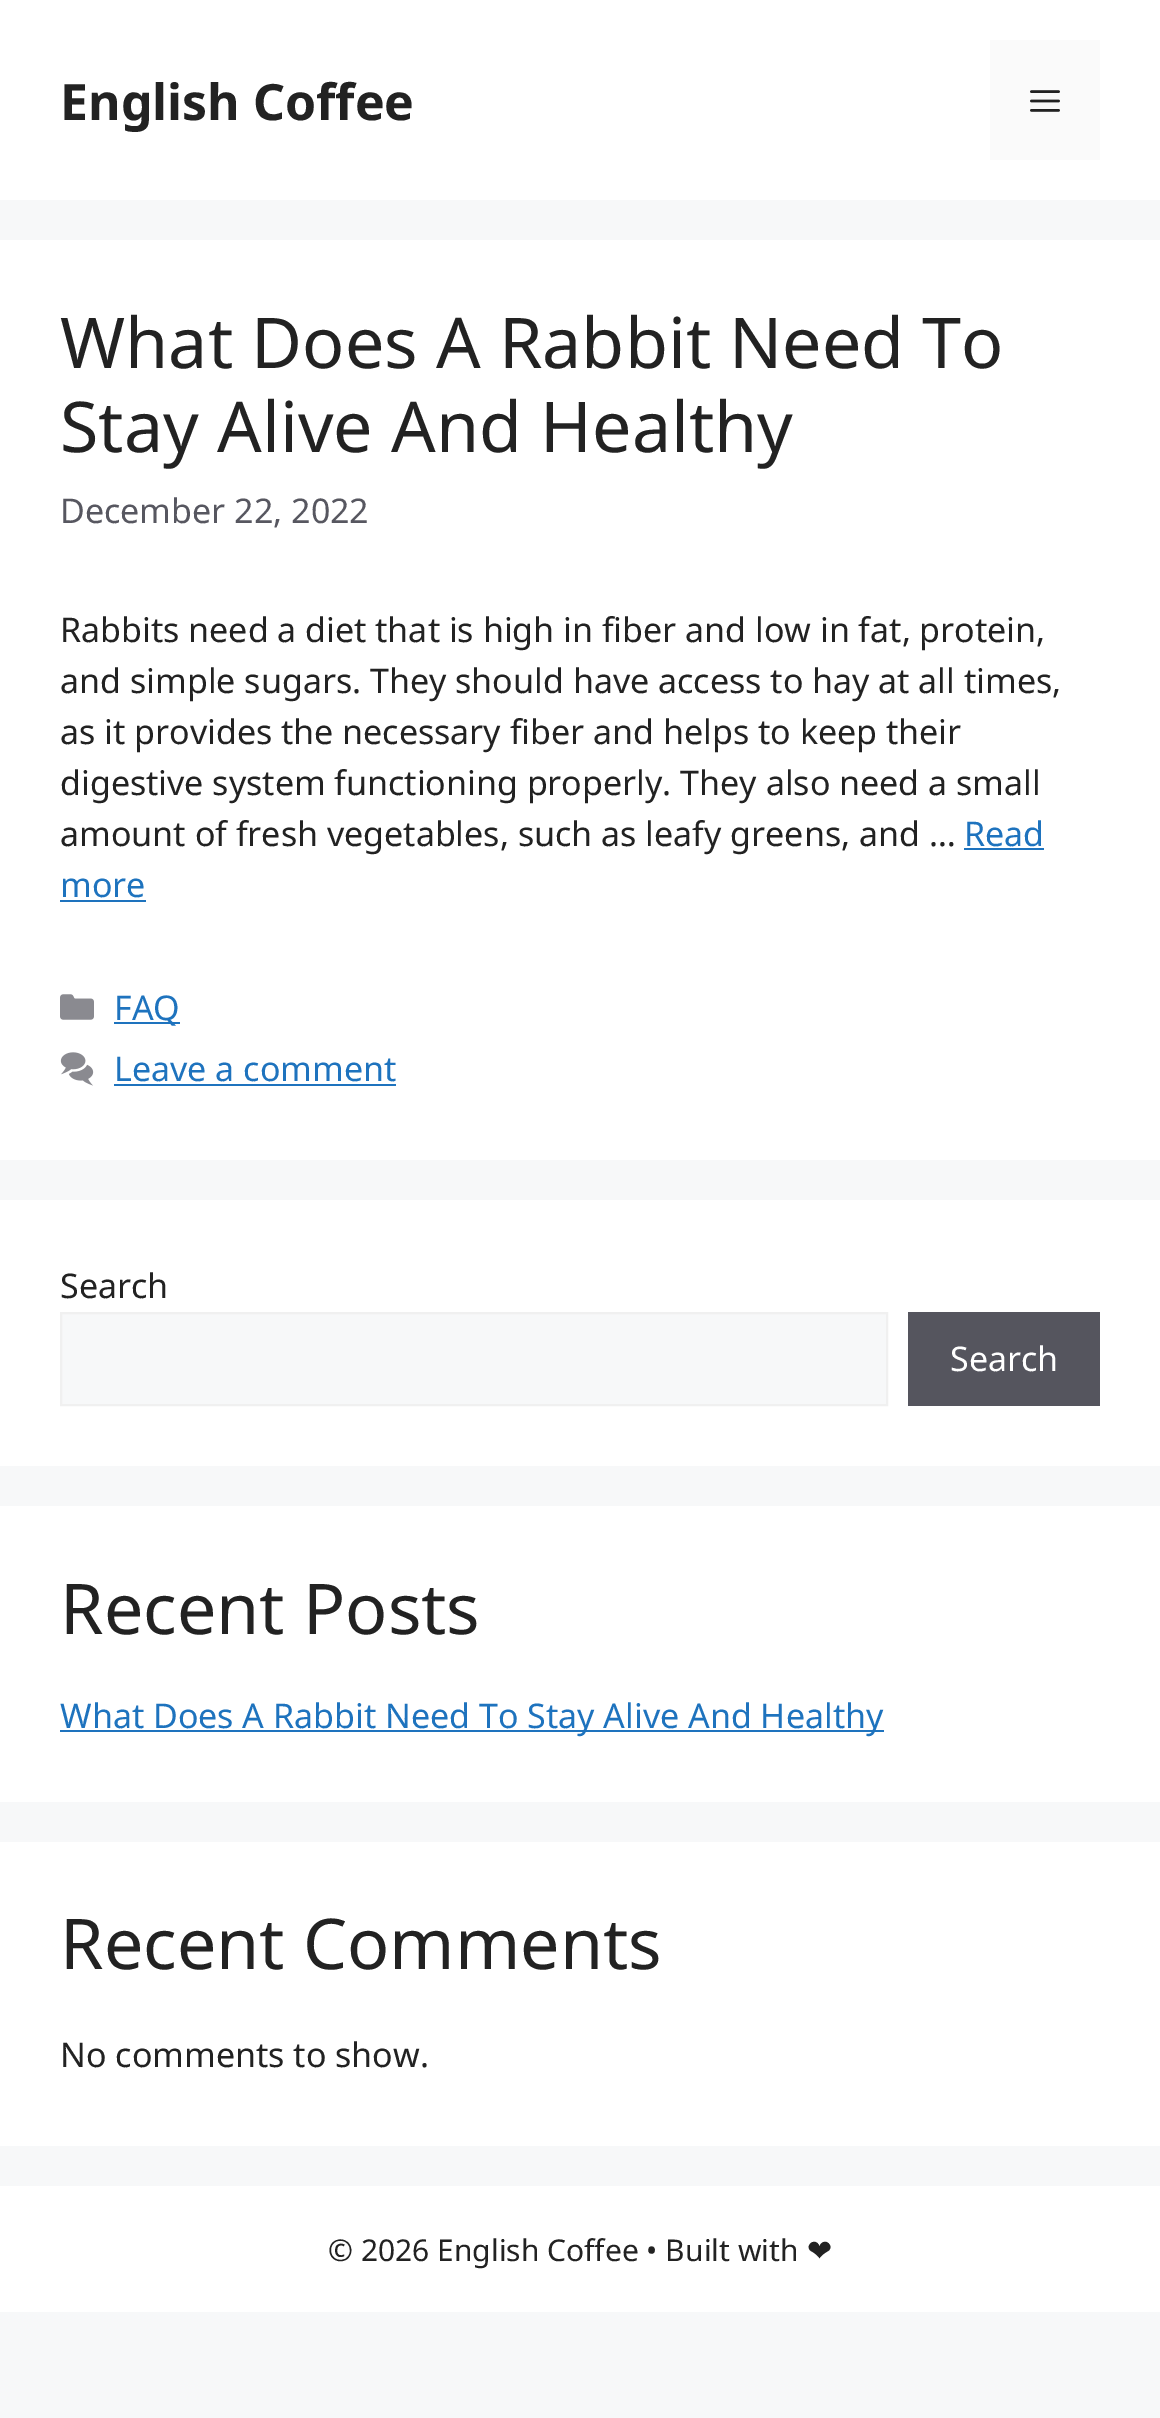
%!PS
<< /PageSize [1160 2418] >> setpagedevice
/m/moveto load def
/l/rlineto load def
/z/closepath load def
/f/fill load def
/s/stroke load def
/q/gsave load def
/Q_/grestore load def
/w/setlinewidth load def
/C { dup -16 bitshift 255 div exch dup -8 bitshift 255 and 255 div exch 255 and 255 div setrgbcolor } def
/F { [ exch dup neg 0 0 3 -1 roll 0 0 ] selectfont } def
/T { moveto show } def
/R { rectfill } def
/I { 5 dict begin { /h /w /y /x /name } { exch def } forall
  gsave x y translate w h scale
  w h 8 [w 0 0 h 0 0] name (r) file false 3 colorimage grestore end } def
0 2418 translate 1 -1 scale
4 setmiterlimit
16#F7F8F9 C
0 0 1160 2418 R
16#FFFFFF C
0 0 1160 200 R
/NotoSans-Bold 50 F
16#222222 C
(English Coffee) 60 120 T
16#FAFAFA C
990 40 110 120 R
(1.rgb) 1030 90 30 22 I
16#FFFFFF C
0 240 1160 920 R
/NotoSans-Regular 70 F
16#222222 C
(What Does A Rabbit Need To) 60 368 T
(Stay Alive And Healthy) 60 452 T
/NotoSans-Regular 34 F
16#575760 C
(December 22, 2022) 60 523 T
16#222222 C
(Rabbits need a diet that is high in fiber and low in fat, protein,) 60 642 T
(and simple sugars. They should have access to hay at all times,) 60 693 T
(as it provides the necessary fiber and helps to keep their) 60 744 T
(digestive system functioning properly. They also need a small) 60 795 T
(amount of fresh vegetables, such as leafy greens, and …) 60 846 T
16#1E73BE C
(Read) 964 846 T
964 848 80 2 R
(more) 60 897 T
60 900 86 2 R
(2.rgb) 60 994 34 26 I
114 1022 66 2 R
(FAQ) 114 1020 T
(3.rgb) 60 1052 34 34 I
(Leave a comment) 114 1081 T
114 1084 282 2 R
16#FFFFFF C
0 1200 1160 266 R
16#222222 C
(Search) 60 1298 T
16#F7F8F9 C
61 1313 m 826 0 l 0 92 l -826 0 l z q f Q_
16#F0F0F0 C
2 w
s
16#55555E C
908 1312 192 94 R
16#FFFFFF C
(Search) 950 1371 T
0 1506 1160 296 R
/NotoSans-Regular 70 F
16#222222 C
(Recent Posts) 60 1634 T
16#1E73BE C
60 1730 824 2 R
/NotoSans-Regular 34 F
(What Does A Rabbit Need To Stay Alive And Healthy) 60 1728 T
16#FFFFFF C
0 1842 1160 304 R
/NotoSans-Regular 70 F
16#222222 C
(Recent Comments) 60 1969 T
/NotoSans-Regular 34 F
(No comments to show.) 60 2067 T
16#FFFFFF C
0 2186 1160 126 R
/NotoSans-Regular 30 F
16#222222 C
(© 2026 English Coffee • Built with) 328 2261 T
/DejaVuSans-Regular 30 F
(❤) 807 2261 T
showpage
